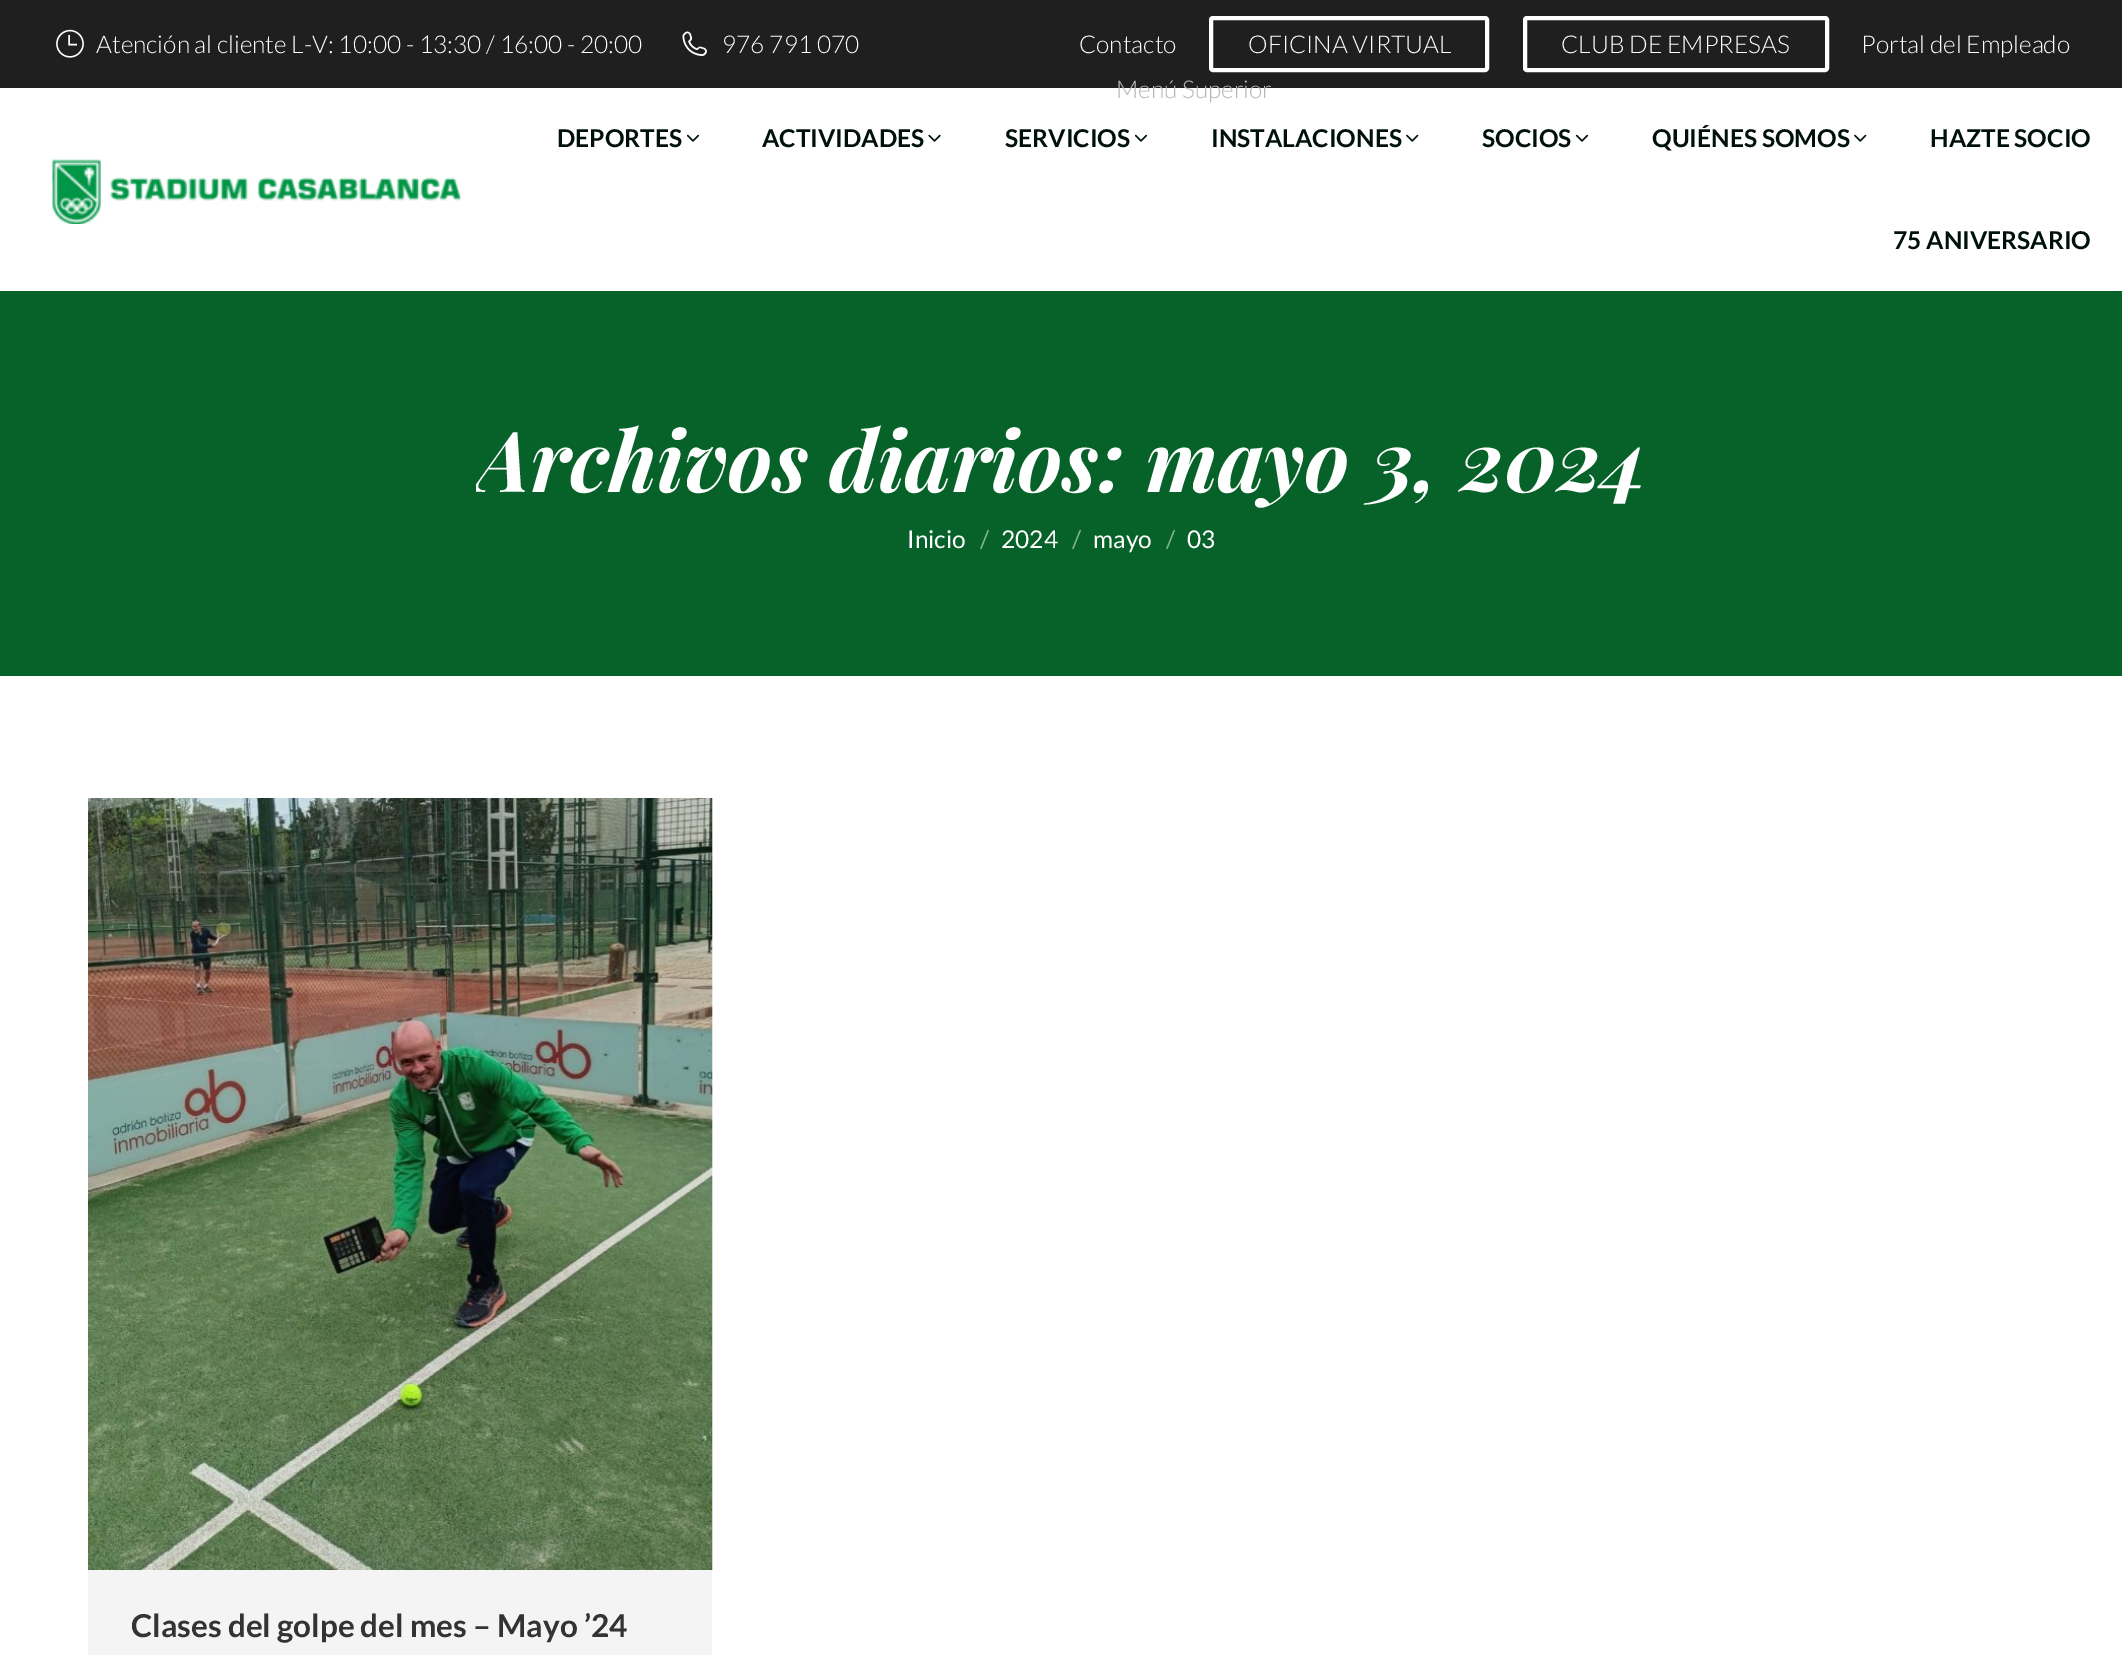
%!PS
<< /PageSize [2122 1655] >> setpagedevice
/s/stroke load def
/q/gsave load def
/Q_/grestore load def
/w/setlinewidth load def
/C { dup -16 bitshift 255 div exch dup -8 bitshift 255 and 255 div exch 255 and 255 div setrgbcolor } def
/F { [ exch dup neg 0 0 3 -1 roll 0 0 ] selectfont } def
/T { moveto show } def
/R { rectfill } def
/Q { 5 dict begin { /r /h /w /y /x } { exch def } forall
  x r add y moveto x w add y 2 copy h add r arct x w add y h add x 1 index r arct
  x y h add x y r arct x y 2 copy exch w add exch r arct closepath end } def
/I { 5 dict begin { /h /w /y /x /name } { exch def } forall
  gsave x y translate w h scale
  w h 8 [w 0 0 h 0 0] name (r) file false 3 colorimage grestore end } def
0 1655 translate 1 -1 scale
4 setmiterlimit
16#FFFFFF C
0 0 2122 1655 R
16#1F1F1F C
0 0 2122 88 R
(1.rgb) 56 29 28 29 I
/Lato-Light 24.5 F
16#FFFFFF C
(Atención al cliente L-V: 10:00 - 13:30 / 16:00 - 20:00) 96 53 T
(2.rgb) 682 31 25 25 I
(976 791 070) 722 53 T
(Contacto) 1079 53 T
4 w
1211 18 276 52 2 Q s
(OFICINA VIRTUAL) 1248 53 T
1525 18 302 52 2 Q s
(CLUB DE EMPRESAS) 1561 53 T
(Portal del Empleado) 1861 53 T
16#B7B7B7 C
(Menú Superior) 1116 98 T
(3.rgb) 52 158 409 66 I
/Lato-Bold 24.5 F
16#00110A C
(DEPORTES) 557 147 T
(4.rgb) 686 134 14 8 I
(ACTIVIDADES) 762 147 T
(5.rgb) 928 134 13 8 I
(SERVICIOS) 1005 147 T
(4.rgb) 1134 134 14 8 I
(INSTALACIONES) 1211 147 T
(6.rgb) 1406 134 13 8 I
(SOCIOS) 1482 147 T
(4.rgb) 1575 134 14 8 I
(QUIÉNES SOMOS) 1652 147 T
(6.rgb) 1854 134 13 8 I
(HAZTE SOCIO) 1930 147 T
(75 ANIVERSARIO) 1893 249 T
16#076229 C
0 291 2122 385 R
q
476 392 1171 130 rectclip
/PlayfairDisplay-BoldItalic 84 F
16#FFFFFF C
(Archivos diarios: mayo 3, 2024) 476 492 T
Q_
/Lato-Regular 24.5 F
16#FFFFFF C
(Inicio) 907 548 T
16#83B194 C
(/) 980 548 T
16#FFFFFF C
(2024) 1001 548 T
16#83B194 C
(/) 1072 548 T
16#FFFFFF C
(mayo) 1093 548 T
16#83B194 C
(/) 1166 548 T
16#FFFFFF C
(03) 1187 548 T
16#F4F4F4 C
88 1570 624 85 R
(7.rgb) 88 798 625 772 I
/Lato-Bold 31.5 F
16#333333 C
(Clases del golpe del mes – Mayo ’24) 131 1637 T
showpage
